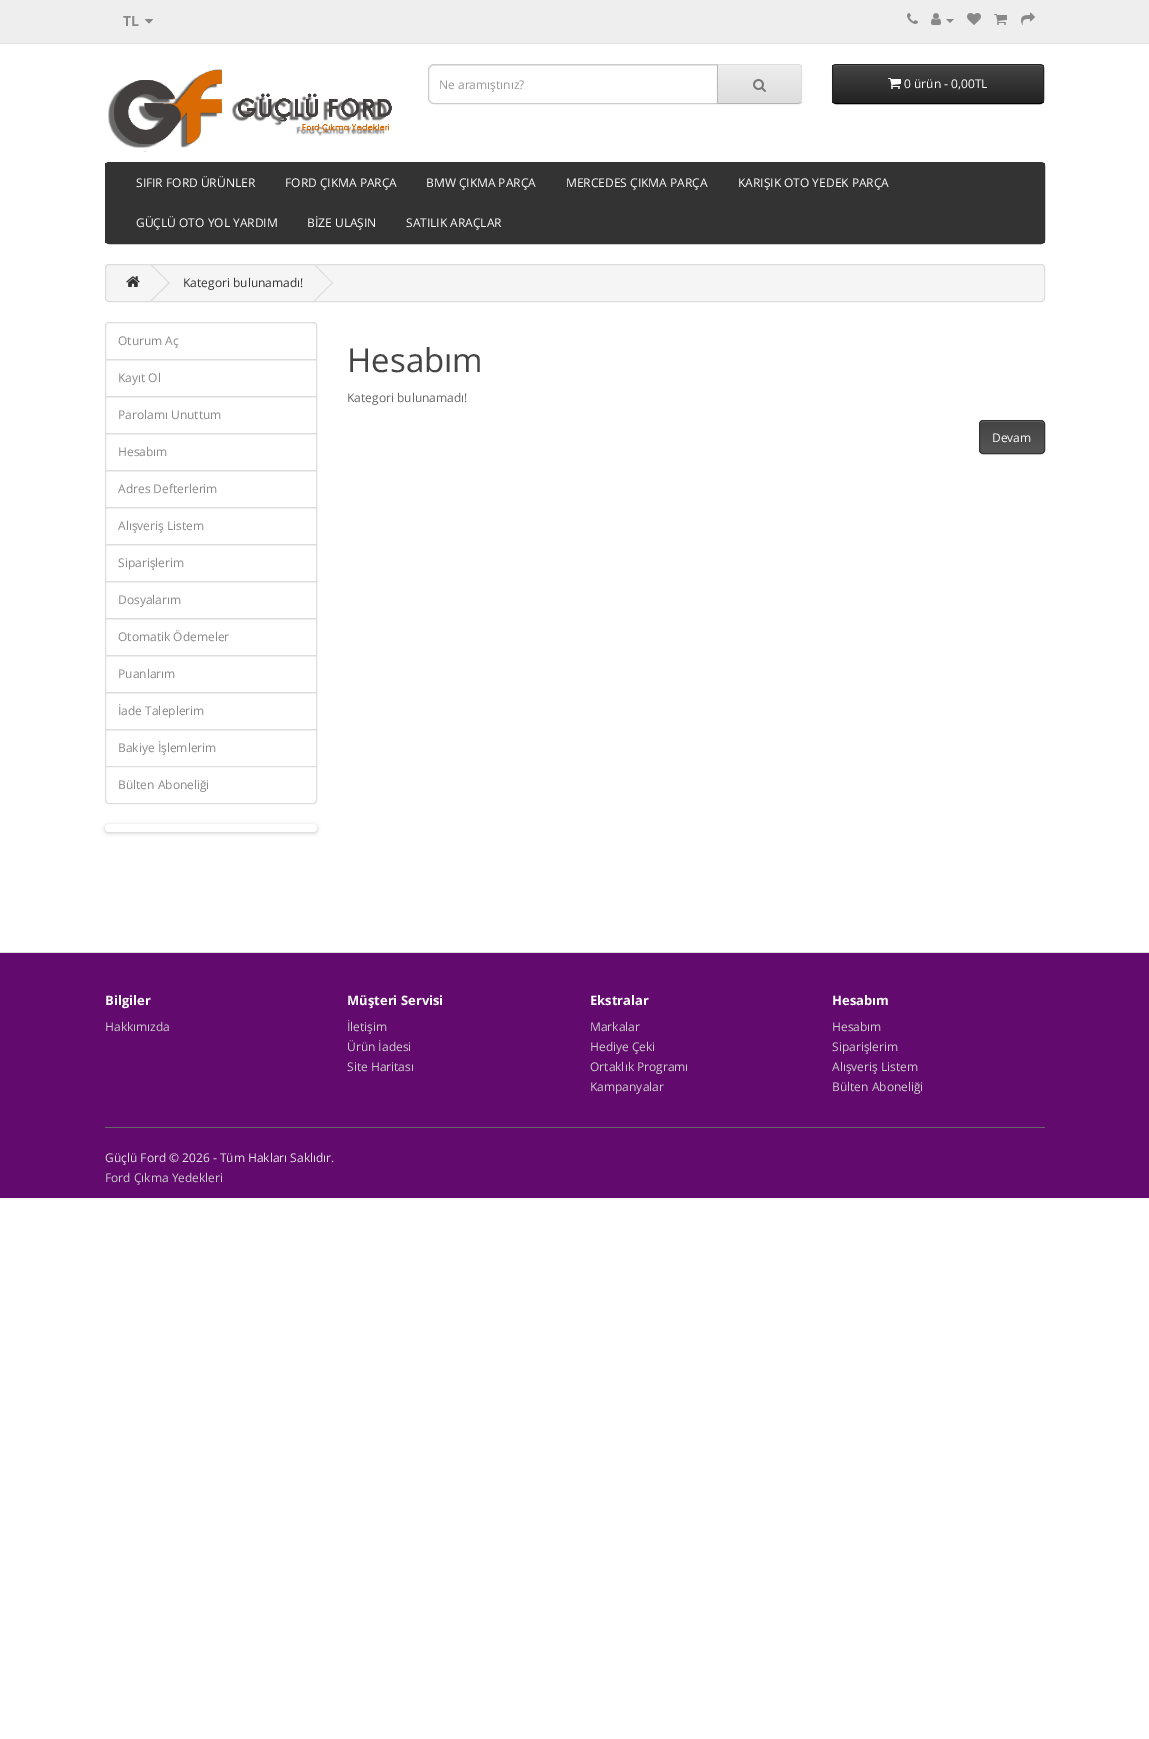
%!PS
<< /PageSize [1149 1739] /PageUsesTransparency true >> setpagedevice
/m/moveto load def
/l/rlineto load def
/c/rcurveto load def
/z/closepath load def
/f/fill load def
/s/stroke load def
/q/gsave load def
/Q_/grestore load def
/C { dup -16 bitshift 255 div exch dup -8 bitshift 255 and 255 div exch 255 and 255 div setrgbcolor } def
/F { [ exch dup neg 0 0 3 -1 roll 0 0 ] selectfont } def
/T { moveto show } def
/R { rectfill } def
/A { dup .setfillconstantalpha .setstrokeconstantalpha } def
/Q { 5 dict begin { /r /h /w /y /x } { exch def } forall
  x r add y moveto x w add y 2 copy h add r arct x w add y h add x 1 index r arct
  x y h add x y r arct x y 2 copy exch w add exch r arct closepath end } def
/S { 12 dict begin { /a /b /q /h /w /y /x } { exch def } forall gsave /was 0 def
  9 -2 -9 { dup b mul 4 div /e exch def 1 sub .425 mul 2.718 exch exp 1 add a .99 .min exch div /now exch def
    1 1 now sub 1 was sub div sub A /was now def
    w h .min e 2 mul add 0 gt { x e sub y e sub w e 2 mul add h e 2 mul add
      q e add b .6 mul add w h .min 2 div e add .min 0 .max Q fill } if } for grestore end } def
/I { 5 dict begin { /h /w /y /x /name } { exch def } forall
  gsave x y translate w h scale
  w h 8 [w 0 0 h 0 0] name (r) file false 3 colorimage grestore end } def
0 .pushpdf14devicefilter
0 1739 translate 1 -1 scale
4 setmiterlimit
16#FFFFFF C
0 0 1149 1739 R
16#EEEEEE C
0 0 1149 43 R
16#E2E2E2 C
0 43 1149 1 R
/OpenSans-Bold 14 F
16#888888 C
(TL) 123 26 T
(1.rgb) 145 19 8 5 I
(2.rgb) 907 13 11 11 I
(3.rgb) 931 13 10 12 I
946 19 m 8 0 l -4 4 l z f
(4.rgb) 967 13 14 12 I
(5.rgb) 994 14 13 11 I
(6.rgb) 1021 12 14 13 I
(7.rgb) 108 69 284 83 I
16#ECECEC C
434 66 m 283 0 l 0 -1 l -283 0 l -3 0 -5 2 -5 5 c 0 1 l 0 -3 2 -5 5 -5 c z f
16#CCCCCC C
434 64.5 m 283.5 0 l 0 39 l -283.5 0 l -3 0 -5.5 -2.5 -5.5 -5.5 c 0 -28 l 0 -3 2.5 -5.5 5.5 -5.5 c z s
/OpenSans-Regular 12 F
16#999999 C
(Ne aramıştınız?) 439 89 T
16#000000 C
717 65 85 40 4 1 .05 S
16#E7E7E7 C
717 64 m 81 0 l 2 0 4 2 4 4 c 0 32 l 0 2 -2 4 -4 4 c -81 0 l z f
q
717 64 m 81 0 l 2 0 4 2 4 4 c 0 32 l 0 2 -2 4 -4 4 c -81 0 l z clip newpath
q 718 65 m 84 0 l 0 38 l -84 0 l z clip newpath
<< /ShadingType 2 /ColorSpace /DeviceRGB /Coords [760 65 760 103] /Extend [true true] /Function << /FunctionType 2 /Domain [0 1] /C0 [.933 .933 .933] /C1 [.867 .867 .867] /N 1 >> >> shfill Q_
Q_
16#F1F1F1 C
718 66 m 80 0 l 2 0 3 1 3 3 c 0 -1 l 0 -2 -1 -3 -3 -3 c -80 0 l z f
16#DDDDDD C
717 64 m 1 1 l 81 0 l 1 1 l 1 -1 l -3 -1 l z f
802 100 m 0 -32 l 0 -1 -.5 -2 -1 -3 c -1 1 l 1 0 1 1 1 2 c 0 32 l 0 1 0 2 -1 2 c 1 1 l .5 -1 1 -2 1 -3 c z f
16#B3B3B3 C
798 104 m 3 -1 l -1 -1 l -1 1 l -81 0 l -1 1 l z f
16#B7B7B7 C
717 64 m 0 40 l 1 -1 l 0 -38 l z f
(8.rgb) 753 79 13 13 I
16#000000 C
832 65 212 40 4 1 .05 S
q
832 64 212 40 4 Q clip newpath
q 832 65 m 212 0 l 0 38 l -212 0 l z clip newpath
<< /ShadingType 2 /ColorSpace /DeviceRGB /Coords [938 65 938 103] /Extend [true true] /Function << /FunctionType 2 /Domain [0 1] /C0 [.267 .267 .267] /C1 [.133 .133 .133] /N 1 >> >> shfill Q_
Q_
16#696969 C
836 66 m 204 0 l 2 0 3 1 3 3 c 0 -1 l 0 -2 -1 -3 -3 -3 c -204 0 l -2 0 -3 1 -3 3 c 0 1 l 0 -2 1 -3 3 -3 c z f
16#000000 C
1042.5 102.5 m -.5 .5 -1.5 1 -2.5 1 c -204 0 l -1 0 -2 -.5 -2.5 -1 c s
16#222222 C
833.5 102.5 m -.5 -.5 -1 -1.5 -1 -2.5 c 0 -32 l 0 -1 .5 -2 1 -2.5 c .5 -.5 1.5 -1 2.5 -1 c 204 0 l 1 0 2 .5 2.5 1 c .5 .5 1 1.5 1 2.5 c 0 32 l 0 1 -.5 2 -1 2.5 c s
(9.rgb) 888 78 13 11 I
16#FFFFFF C
(0 ürün - 0,00TL) 904 88 T
q
105 162 940 82 4 Q clip newpath
16#333333 C
105 163 940 80 R
Q_
16#333333 C
105.5 162.5 939 81 3.5 Q s
16#FFFFFF C
(SIFIR FORD ÜRÜNLER) 136 187 T
(FORD ÇIKMA PARÇA) 285 187 T
(BMW ÇIKMA PARÇA) 426 187 T
(MERCEDES ÇIKMA PARÇA) 566 187 T
(KARIŞIK OTO YEDEK PARÇA) 738 187 T
(GÜÇLÜ OTO YOL YARDIM) 136 227 T
(BİZE ULAŞIN) 307 227 T
(SATILIK ARAÇLAR) 406 227 T
16#F5F5F5 C
105.5 264.5 939 37 3.5 Q q f Q_
16#DDDDDD C
s
(10.rgb) 126 276 14 11 I
150.5 265 m 1 -.5 l 18.5 18.5 l -1 .5 l z f
150.5 300.5 m 18.5 -18.5 l 1 1 l -18.5 18 l z f
16#333333 C
(Kategori bulunamadı!) 183 287 T
16#DDDDDD C
314 265 m 1 -.5 l 18 18.5 l -.5 .5 l z f
314 300.5 m 18.5 -18.5 l .5 1 l -18 18 l z f
109 322.5 m 204 0 l 2 0 3.5 1.5 3.5 3.5 c 0 33.5 l -211 0 l 0 -33.5 l 0 -2 1.5 -3.5 3.5 -3.5 c z s
16#888888 C
(Oturum Aç) 118 345 T
16#DDDDDD C
105.5 359.5 211 37 rectstroke
16#888888 C
(Kayıt Ol) 118 382 T
16#DDDDDD C
105.5 396.5 211 37 rectstroke
16#888888 C
(Parolamı Unuttum) 118 419 T
16#DDDDDD C
105.5 433.5 211 37 rectstroke
16#888888 C
(Hesabım) 118 456 T
16#DDDDDD C
105.5 470.5 211 37 rectstroke
16#888888 C
(Adres Defterlerim) 118 493 T
16#DDDDDD C
105.5 507.5 211 37 rectstroke
16#888888 C
(Alışveriş Listem) 118 530 T
16#DDDDDD C
105.5 544.5 211 37 rectstroke
16#888888 C
(Siparişlerim) 118 567 T
16#DDDDDD C
105.5 581.5 211 37 rectstroke
16#888888 C
(Dosyalarım) 118 604 T
16#DDDDDD C
105.5 618.5 211 37 rectstroke
16#888888 C
(Otomatik Ödemeler) 118 641 T
16#DDDDDD C
105.5 655.5 211 37 rectstroke
16#888888 C
(Puanlarım) 118 678 T
16#DDDDDD C
105.5 692.5 211 37 rectstroke
16#888888 C
(İade Taleplerim) 118 715 T
16#DDDDDD C
105.5 729.5 211 37 rectstroke
16#888888 C
(Bakiye İşlemlerim) 118 752 T
16#FFFFFF C
105.5 766.5 m 211 0 l 0 33.5 l 0 2 -1.5 3.5 -3.5 3.5 c -204 0 l -2 0 -3.5 -1.5 -3.5 -3.5 c z q f Q_
16#DDDDDD C
s
16#888888 C
(Bülten Aboneliği) 118 789 T
16#000000 C
105 825 212 8 4 2 .2 S
16#FFFFFF C
105 824 212 8 4 Q f
/OpenSans-Regular 33 F
16#444444 C
(Hesabım) 347 372 T
/OpenSans-Regular 12 F
16#666666 C
(Kategori bulunamadı!) 347 402 T
16#000000 C
979 421 66 34 4 1 .05 S
q
979 420 66 34 4 Q clip newpath
q 980 421 m 64 0 l 0 32 l -64 0 l z clip newpath
<< /ShadingType 2 /ColorSpace /DeviceRGB /Coords [1012 421 1012 453] /Extend [true true] /Function << /FunctionType 2 /Domain [0 1] /C0 [.267 .267 .267] /C1 [.333 .333 .333] /N 1 >> >> shfill Q_
Q_
16#696969 C
983 422 m 58 0 l 2 0 3 1 3 3 c 0 -6 -8 -4 -13 -4 c -38 0 l -5 0 -13 -2 -13 4 c 0 -2 1 -3 3 -3 c z f
16#333333 C
979.5 420.5 65 33 3.5 Q s
16#FFFFFF C
(Devam) 992 442 T
16#620A6E C
0 953 1149 245 R
16#DDDDDD C
0 952 1149 1 R
/OpenSans-Bold 13 F
16#FFFFFF C
(Bilgiler) 105 1005 T
/OpenSans-Regular 12 F
16#CCCCCC C
(Hakkımızda) 105 1031 T
/OpenSans-Bold 13 F
16#FFFFFF C
(Müşteri Servisi) 347 1005 T
/OpenSans-Regular 12 F
16#CCCCCC C
(İletişim) 347 1031 T
(Ürün İadesi) 347 1051 T
(Site Haritası) 347 1071 T
/OpenSans-Bold 13 F
16#FFFFFF C
(Ekstralar) 590 1005 T
/OpenSans-Regular 12 F
16#CCCCCC C
(Markalar) 590 1031 T
(Hediye Çeki) 590 1051 T
(Ortaklık Programı) 590 1071 T
(Kampanyalar) 590 1091 T
/OpenSans-Bold 13 F
16#FFFFFF C
(Hesabım) 832 1005 T
/OpenSans-Regular 12 F
16#CCCCCC C
(Hesabım) 832 1031 T
(Siparişlerim) 832 1051 T
(Alışveriş Listem) 832 1071 T
(Bülten Aboneliği) 832 1091 T
16#666666 C
105 1127 940 1 R
16#E2E2E2 C
(Güçlü Ford © 2026 - Tüm Hakları Saklıdır.) 105 1162 T
16#CCCCCC C
(Ford Çıkma Yedekleri) 105 1182 T
.poppdf14devicefilter showpage
